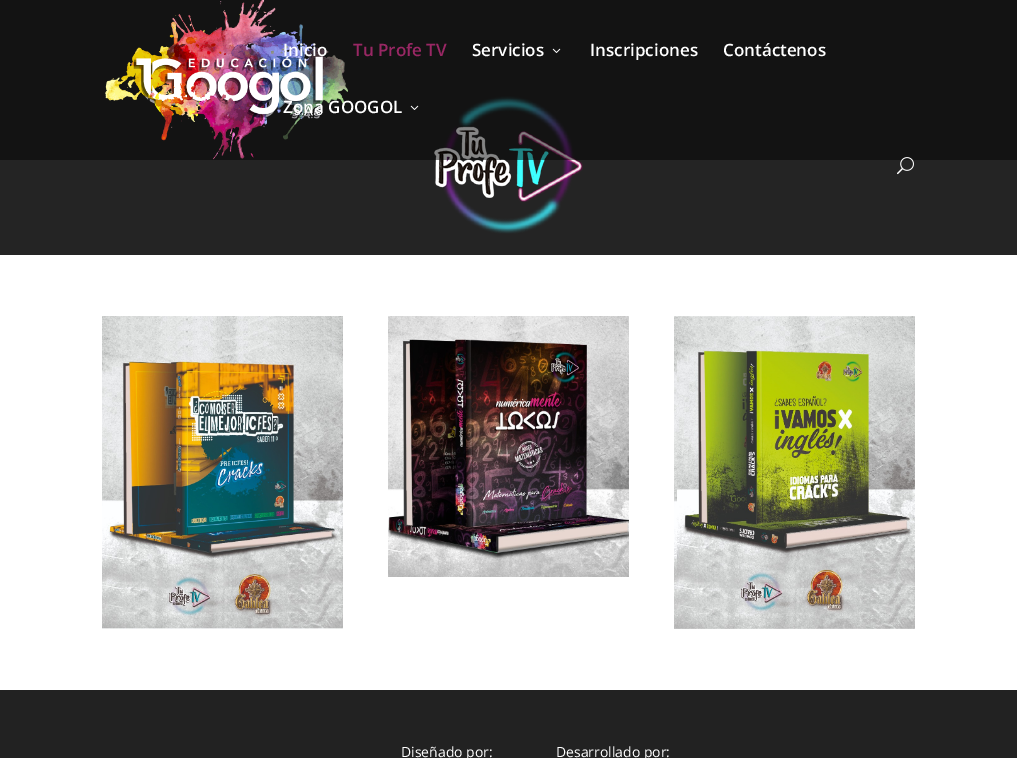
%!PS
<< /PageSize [1017 758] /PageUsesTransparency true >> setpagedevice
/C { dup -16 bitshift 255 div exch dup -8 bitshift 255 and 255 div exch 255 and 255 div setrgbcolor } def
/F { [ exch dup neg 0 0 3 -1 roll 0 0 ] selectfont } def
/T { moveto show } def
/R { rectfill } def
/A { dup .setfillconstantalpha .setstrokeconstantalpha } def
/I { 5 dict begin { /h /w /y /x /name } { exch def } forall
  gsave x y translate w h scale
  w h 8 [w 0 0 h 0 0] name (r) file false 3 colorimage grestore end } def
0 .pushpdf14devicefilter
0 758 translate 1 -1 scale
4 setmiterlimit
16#FFFFFF C
0 0 1017 758 R
16#242424 C
0 0 1017 255 R
(4.rgb) 434 96 149 138 I
0.48 A
16#000000 C
0 0 1017 160 R
1 A
(1.rgb) 105 0 243 160 I
/OpenSans-SemiBold 17 F
16#FFFFFF C
(Inicio) 283 56 T
16#992764 C
(Tu Profe TV) 353 56 T
16#FFFFFF C
(Servicios) 472 56 T
(2.rgb) 552 48 9 5 I
(Inscripciones) 590 56 T
(Contáctenos) 723 56 T
(Zona GOOGOL) 283 113 T
(2.rgb) 410 105 9 5 I
(3.rgb) 897 157 17 18 I
(5.rgb) 102 316 241 313 I
(6.rgb) 388 316 241 261 I
(7.rgb) 674 316 241 313 I
16#222222 C
0 690 1017 68 R
/OpenSans-Regular 14 F
16#FFFFFF C
(Diseñado por:) 401 757 T
(Desarrollado por:) 556 757 T
.poppdf14devicefilter showpage
